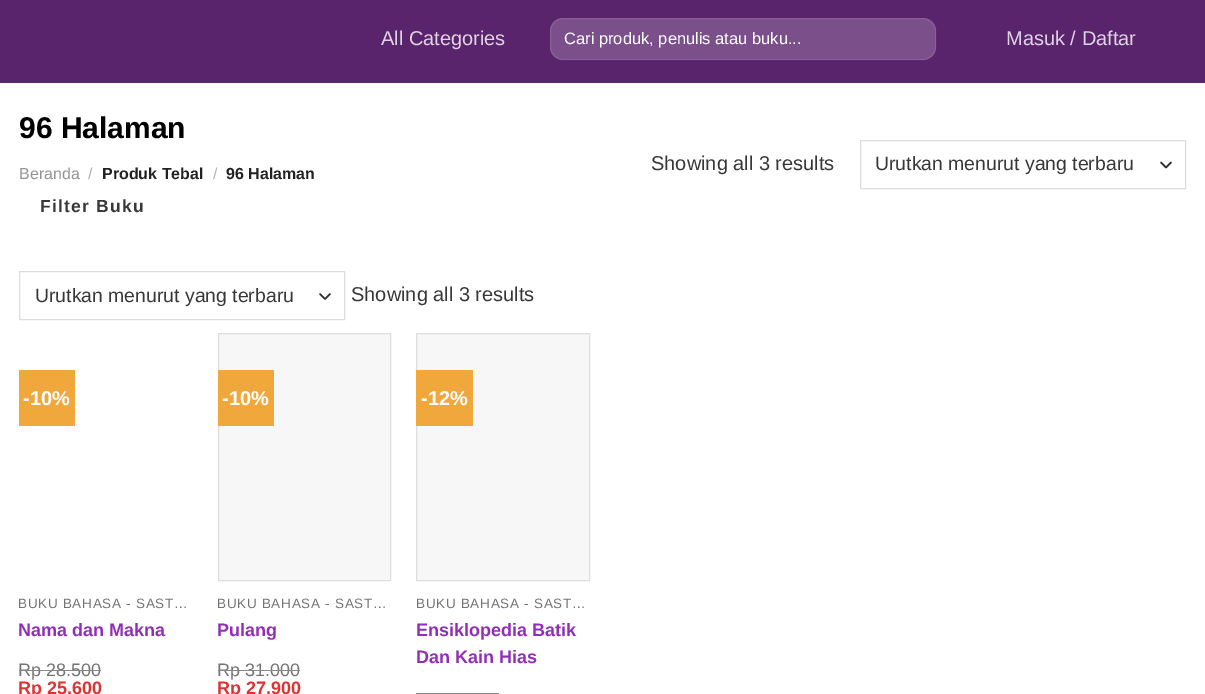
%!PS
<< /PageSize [1205 694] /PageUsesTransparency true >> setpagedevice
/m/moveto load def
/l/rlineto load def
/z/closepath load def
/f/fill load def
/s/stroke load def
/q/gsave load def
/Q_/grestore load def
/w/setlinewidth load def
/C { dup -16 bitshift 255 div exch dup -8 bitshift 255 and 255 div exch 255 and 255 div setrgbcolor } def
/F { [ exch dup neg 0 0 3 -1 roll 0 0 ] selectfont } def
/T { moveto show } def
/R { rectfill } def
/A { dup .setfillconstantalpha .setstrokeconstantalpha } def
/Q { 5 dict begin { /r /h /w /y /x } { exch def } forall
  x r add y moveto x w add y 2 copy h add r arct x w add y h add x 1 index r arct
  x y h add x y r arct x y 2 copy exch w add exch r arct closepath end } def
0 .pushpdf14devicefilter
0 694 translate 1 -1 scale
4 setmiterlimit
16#FFFFFF C
0 0 1205 694 R
16#5A246D C
0 0 1205 83 R
/LiberationSans-Regular 20 F
16#DED3E2 C
(All Categories) 381 45 T
16#7B508A C
550 18 386 42 13 Q f
0.09 A
16#FFFFFF C
550.5 18.5 385 41 12.5 Q s
/LiberationSans-Regular 16.5 F
1 A
(Cari produk, penulis atau buku...) 564 44 T
/LiberationSans-Regular 20 F
16#DED3E2 C
(Masuk / Daftar) 1006 45 T
/LiberationSans-Bold 30 F
16#000000 C
(96 Halaman) 19 138 T
/LiberationSans-Regular 16 F
16#949494 C
(Beranda) 19 179 T
16#B2B2B2 C
(/) 88 179 T
/LiberationSans-Bold 16 F
16#222222 C
(Produk Tebal) 102 179 T
/LiberationSans-Regular 16 F
16#B2B2B2 C
(/) 213 179 T
/LiberationSans-Bold 16 F
16#222222 C
(96 Halaman) 226 179 T
/LiberationSans-Bold 17.5 F
16#383838 C
40 212 m 1.25 0 (Filter Buku) ashow
/LiberationSans-Regular 20 F
(Showing all 3 results) 651 170 T
16#333333 C
1.7 w
1 setlinecap
1 setlinejoin
1161 162.5 m 5 5 l 5 -5 l s
16#DDDDDD C
1 w
0 setlinecap
0 setlinejoin
860.5 140.5 325 48 rectstroke
/LiberationSans-Regular 19.4 F
16#383838 C
(Urutkan menurut yang terbaru) 875 170 T
16#333333 C
1.7 w
1 setlinecap
1 setlinejoin
320 294 m 5 5 l 5 -5 l s
16#DDDDDD C
1 w
0 setlinecap
0 setlinejoin
19.5 271.5 325 48 rectstroke
16#383838 C
(Urutkan menurut yang terbaru) 35 302 T
/LiberationSans-Regular 20 F
(Showing all 3 results) 351 301 T
16#F0A83C C
19 370 56 56 R
/LiberationSans-Bold 20 F
16#FFFFFF C
(-10%) 23 405 T
/LiberationSans-Regular 13.5 F
16#747474 C
18 608 m .7 0 (BUKU BAHASA - SAST…) ashow
/LiberationSans-Bold 18 F
16#922EB5 C
(Nama dan Makna) 18 636 T
/LiberationSans-Regular 18 F
16#747474 C
(Rp 28.500) 18 676 T
16#888888 C
19 670 82 1 R
/LiberationSans-Bold 18 F
16#DD3333 C
(Rp 25.600) 18 694 T
16#F7F7F7 C
218.5 333.5 m 172 0 l 0 247 l -172 0 l z q f Q_
16#DEDEDE C
s
16#F0A83C C
218 370 56 56 R
/LiberationSans-Bold 20 F
16#FFFFFF C
(-10%) 222 405 T
/LiberationSans-Regular 13.5 F
16#747474 C
217 608 m .7 0 (BUKU BAHASA - SAST…) ashow
/LiberationSans-Bold 18 F
16#922EB5 C
(Pulang) 217 636 T
/LiberationSans-Regular 18 F
16#747474 C
(Rp 31.000) 217 676 T
16#888888 C
218 670 82 1 R
/LiberationSans-Bold 18 F
16#DD3333 C
(Rp 27.900) 217 694 T
16#F7F7F7 C
416.5 333.5 m 173 0 l 0 247 l -173 0 l z q f Q_
16#DEDEDE C
s
16#F0A83C C
416 370 57 56 R
/LiberationSans-Bold 20 F
16#FFFFFF C
(-12%) 421 405 T
/LiberationSans-Regular 13.5 F
16#747474 C
416 608 m .7 0 (BUKU BAHASA - SAST…) ashow
/LiberationSans-Bold 18 F
16#922EB5 C
(Ensiklopedia Batik) 416 636 T
(Dan Kain Hias) 416 663 T
16#888888 C
416 693 83 1 R
.poppdf14devicefilter showpage
